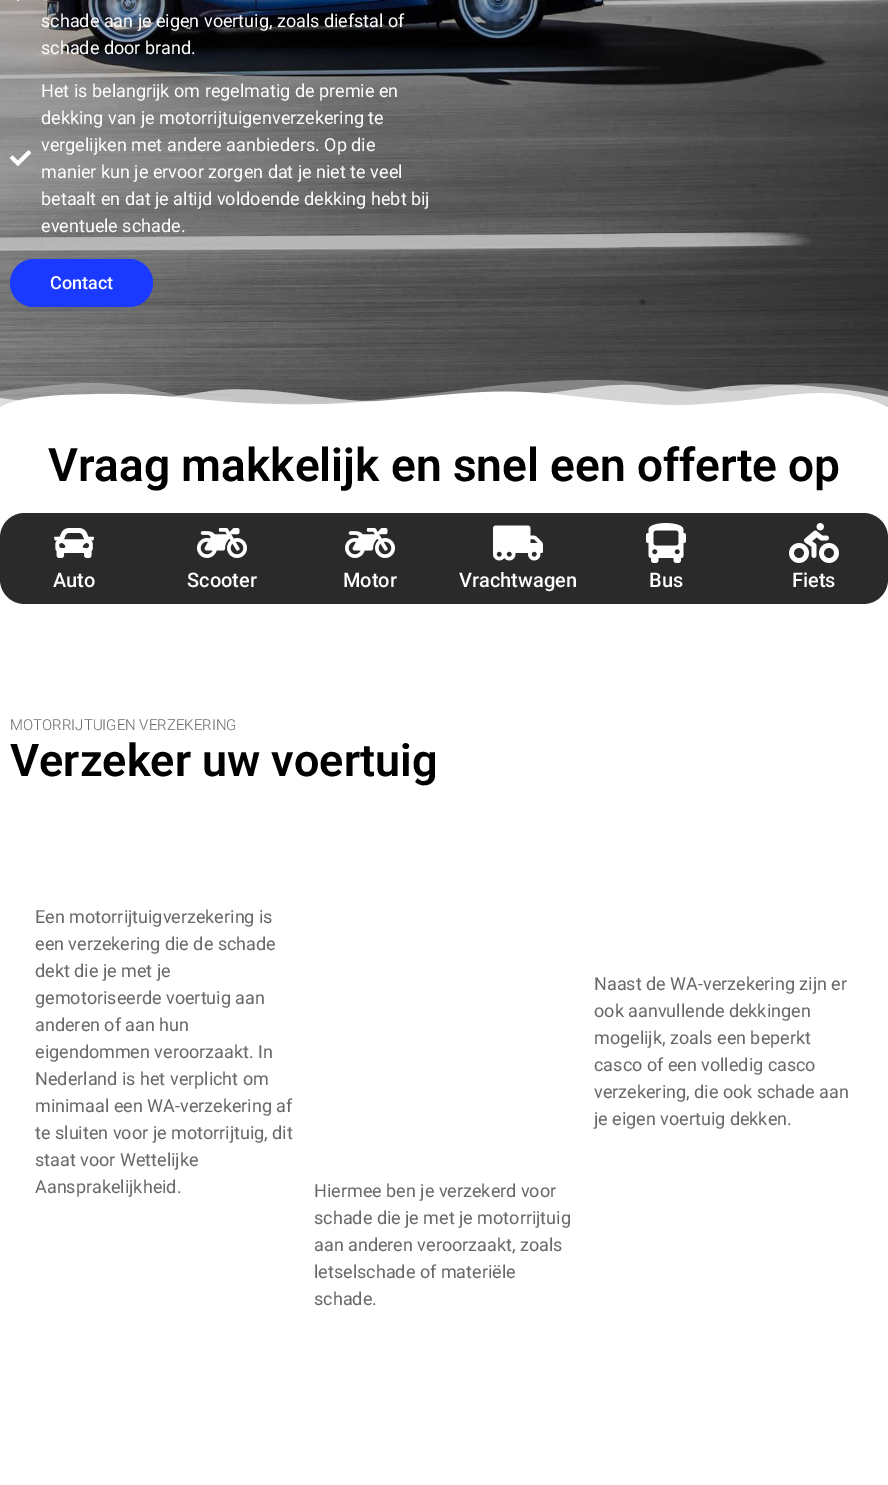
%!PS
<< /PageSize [888 1485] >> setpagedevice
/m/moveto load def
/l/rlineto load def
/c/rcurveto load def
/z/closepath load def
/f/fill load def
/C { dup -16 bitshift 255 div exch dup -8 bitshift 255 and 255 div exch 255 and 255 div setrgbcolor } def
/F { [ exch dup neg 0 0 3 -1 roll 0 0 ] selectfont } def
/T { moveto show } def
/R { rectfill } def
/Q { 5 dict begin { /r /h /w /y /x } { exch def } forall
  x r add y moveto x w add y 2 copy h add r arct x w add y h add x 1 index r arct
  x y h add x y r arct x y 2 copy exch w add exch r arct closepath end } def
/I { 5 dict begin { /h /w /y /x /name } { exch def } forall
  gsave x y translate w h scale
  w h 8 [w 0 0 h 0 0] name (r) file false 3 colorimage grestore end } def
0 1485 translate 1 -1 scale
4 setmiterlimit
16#FFFFFF C
0 0 888 1485 R
(1.rgb) 0 0 888 407 I
(2.rgb) 16 0 3 1 I
/Roboto-Regular 18 F
(schade aan je eigen voertuig, zoals diefstal of) 41 27 T
(schade door brand.) 41 54 T
(3.rgb) 10 150 21 16 I
(Het is belangrijk om regelmatig de premie en) 41 97 T
(dekking van je motorrijtuigenverzekering te) 41 124 T
(vergelijken met andere aanbieders. Op die) 41 151 T
(manier kun je ervoor zorgen dat je niet te veel) 41 178 T
(betaalt en dat je altijd voldoende dekking hebt bij) 41 205 T
(eventuele schade.) 41 232 T
16#1B3AFF C
10 259 143 48 24 Q f
/Roboto-Medium 18 F
16#FFFFFF C
(Contact) 50 289 T
(4.rgb) 0 380 888 27 I
/Roboto-SemiBold 46 F
16#000000 C
(Vraag makkelijk en snel een offerte op) 48 481 T
16#2A2A2A C
25 513 m 123 0 l 0 91 l -123 0 l -14 0 -25 -11 -25 -25 c 0 -41 l 0 -14 11 -25 25 -25 c z f
(5.rgb) 54 528 41 30 I
/Roboto-Medium 20 F
16#FFFFFF C
(Auto) 53 587 T
16#2A2A2A C
148 513 592 91 R
(6.rgb) 197 528 50 30 I
16#FFFFFF C
(Scooter) 187 587 T
(6.rgb) 345 528 50 30 I
(Motor) 343 587 T
(7.rgb) 493 525 50 36 I
(Vrachtwagen) 459 587 T
(8.rgb) 646 523 40 40 I
(Bus) 649 587 T
16#2A2A2A C
740 513 m 123 0 l 14 0 25 11 25 25 c 0 41 l 0 14 -11 25 -25 25 c -123 0 l z f
(9.rgb) 789 523 50 40 I
16#FFFFFF C
(Fiets) 792 587 T
/Roboto-Light 15 F
16#686868 C
(MOTORRIJTUIGEN VERZEKERING) 10 730 T
/Roboto-SemiBold 45 F
16#000000 C
(Verzeker uw voertuig) 10 776 T
/Roboto-Regular 18 F
16#686868 C
(Een motorrijtuigverzekering is) 35 923 T
(een verzekering die de schade) 35 950 T
(dekt die je met je) 35 977 T
(gemotoriseerde voertuig aan) 35 1004 T
(anderen of aan hun) 35 1031 T
(eigendommen veroorzaakt. In) 35 1058 T
(Nederland is het verplicht om) 35 1085 T
(minimaal een WA-verzekering af) 35 1112 T
(te sluiten voor je motorrijtuig, dit) 35 1139 T
(staat voor Wettelijke) 35 1166 T
(Aansprakelijkheid.) 35 1193 T
(Naast de WA-verzekering zijn er) 594 990 T
(ook aanvullende dekkingen) 594 1017 T
(mogelijk, zoals een beperkt) 594 1044 T
(casco of een volledig casco) 594 1071 T
(verzekering, die ook schade aan) 594 1098 T
(je eigen voertuig dekken.) 594 1125 T
(Hiermee ben je verzekerd voor) 314 1197 T
(schade die je met je motorrijtuig) 314 1224 T
(aan anderen veroorzaakt, zoals) 314 1251 T
(letselschade of materiële) 314 1278 T
(schade.) 314 1305 T
showpage
